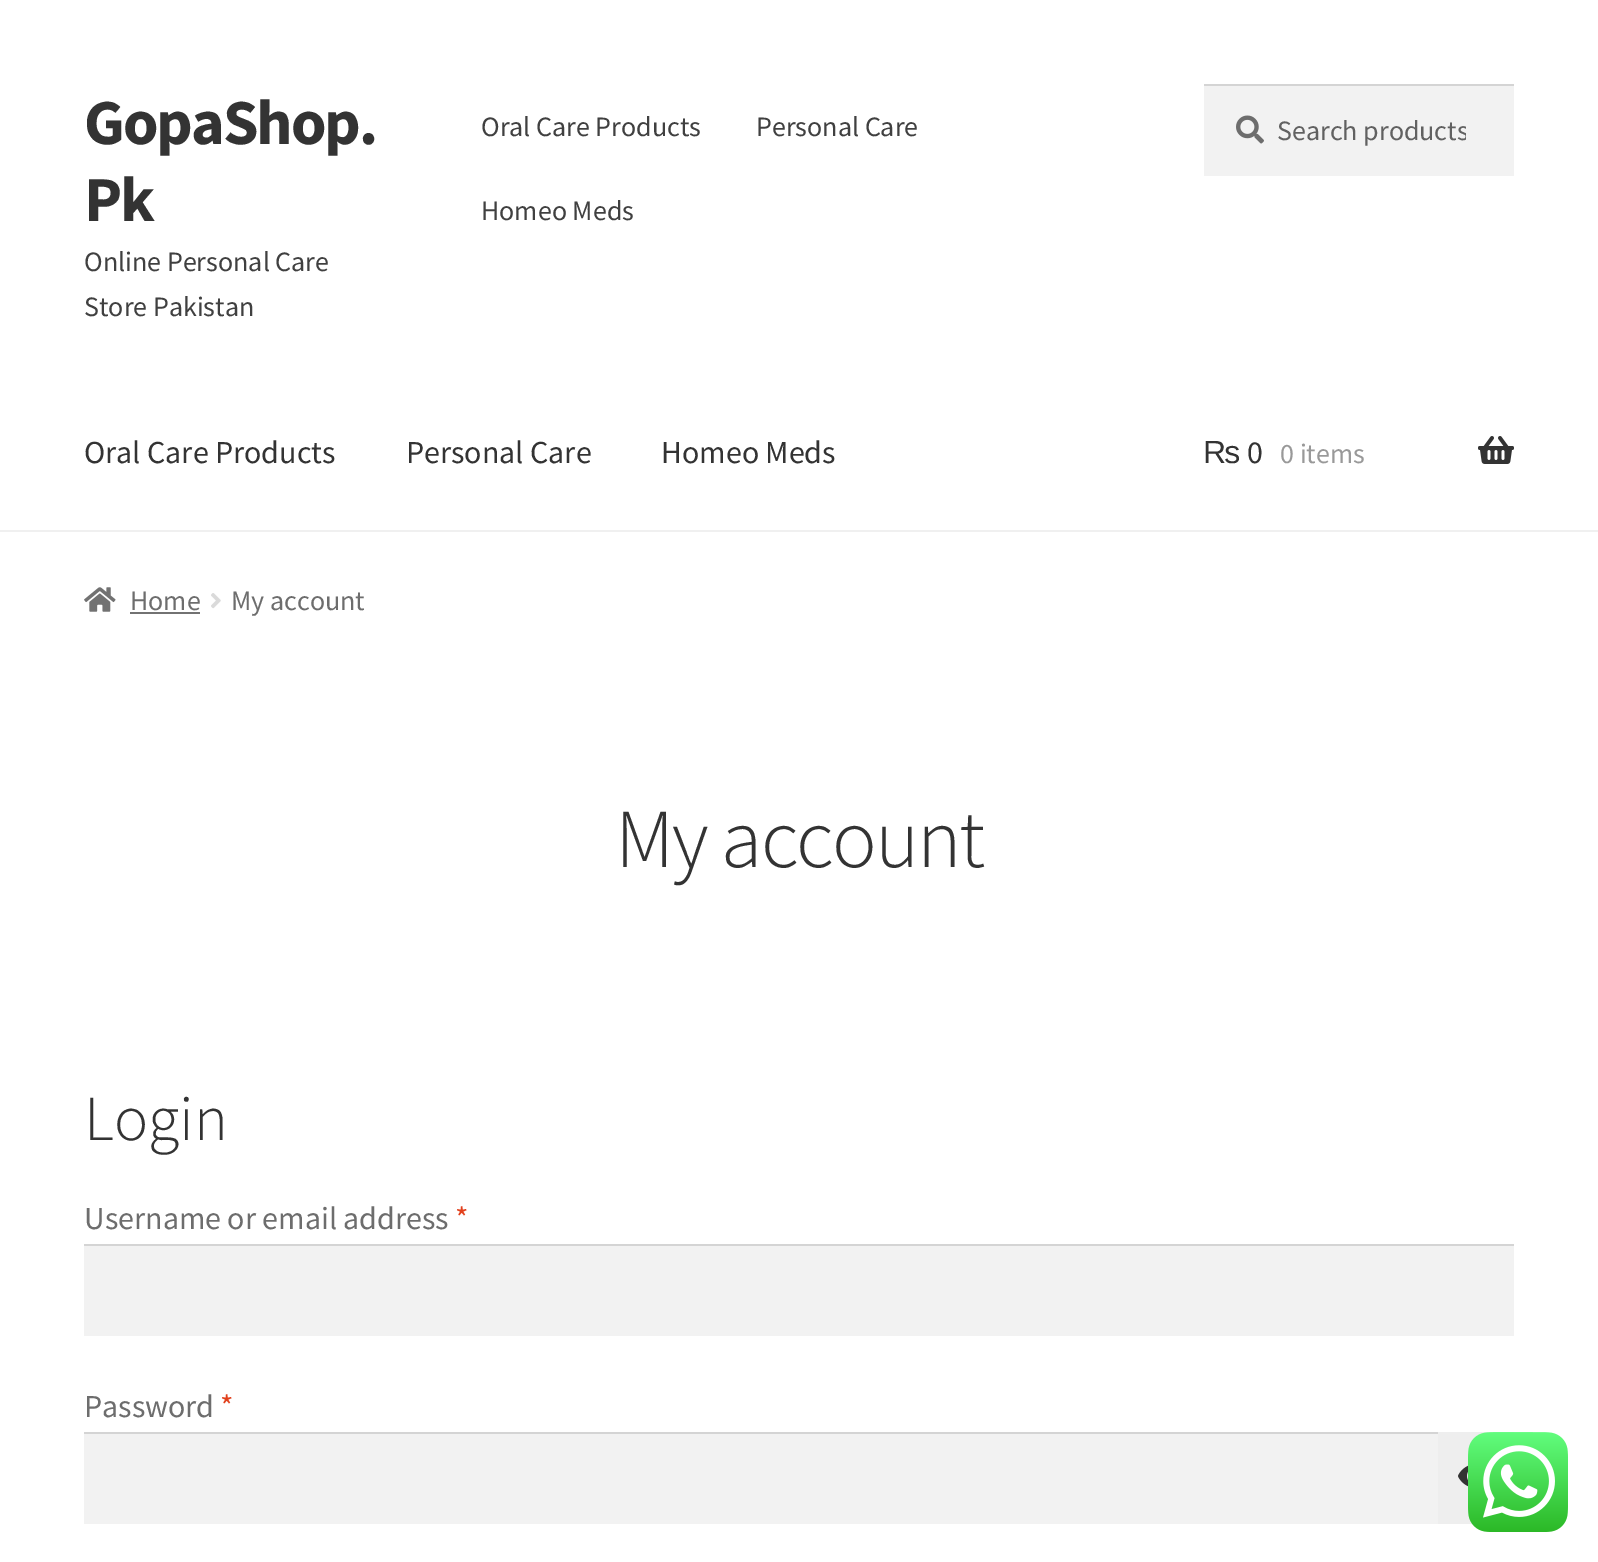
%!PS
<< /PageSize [1598 1562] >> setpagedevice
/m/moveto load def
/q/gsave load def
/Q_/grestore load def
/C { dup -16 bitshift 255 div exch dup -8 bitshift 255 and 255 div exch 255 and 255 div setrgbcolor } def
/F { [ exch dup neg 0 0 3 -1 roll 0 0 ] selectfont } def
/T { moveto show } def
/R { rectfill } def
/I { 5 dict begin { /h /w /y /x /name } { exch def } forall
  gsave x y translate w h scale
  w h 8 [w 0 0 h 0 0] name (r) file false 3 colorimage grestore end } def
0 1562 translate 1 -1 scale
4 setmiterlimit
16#FFFFFF C
0 0 1598 1562 R
16#F0F0F0 C
0 530 1598 2 R
/SourceSansPro-Bold 64 F
16#333333 C
84 144 m -2 0 (GopaShop.) ashow
84 221 m -2 0 (Pk) ashow
/SourceSansPro-Regular 28 F
16#404040 C
(Online Personal Care) 84 271 T
(Store Pakistan) 84 316 T
(Oral Care Products) 481 136 T
(Personal Care) 756 136 T
(Homeo Meds) 481 220 T
16#F2F2F2 C
1204 86 310 90 R
(1.rgb) 1236 115 28 29 I
16#D4D4D4 C
1204 84 310 2 R
q
1276 112 190 36 rectclip
16#616161 C
(Search products) 1277 140 T
Q_
/SourceSansPro-Regular 32 F
16#333333 C
(Oral Care Products) 84 463 T
(Personal Care) 406 463 T
(Homeo Meds) 661 463 T
/LiberationSans-Regular 32 F
(₨) 1203 463 T
/SourceSansPro-Regular 32 F
(0) 1247 463 T
/SourceSansPro-Regular 28 F
16#999999 C
(0 items) 1280 463 T
(2.rgb) 1478 436 36 28 I
(3.rgb) 84 587 32 25 I
16#6D6D6D C
(Home) 130 610 T
16#727272 C
130 612 70 2 R
(4.rgb) 211 593 10 16 I
16#6D6D6D C
(My account) 231 610 T
/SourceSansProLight-Light 83.75 F
16#333333 C
615 867 m -2 0 (My account) ashow
/SourceSansProLight-Light 64 F
(Login) 84 1140 T
/SourceSansPro-Regular 32 F
16#6D6D6D C
(Username or email address) 84 1229 T
16#E2401C C
(*) 455 1229 T
16#F2F2F2 C
84 1246 1430 90 R
16#D4D4D4 C
84 1244 1430 2 R
16#6D6D6D C
(Password) 84 1417 T
16#E2401C C
(*) 220 1417 T
16#F2F2F2 C
84 1434 1354 90 R
16#D4D4D4 C
84 1432 1354 2 R
16#EEEEEE C
1438 1432 76 92 R
(5.rgb) 1458 1465 10 22 I
(6.rgb) 1468 1432 100 100 I
showpage
